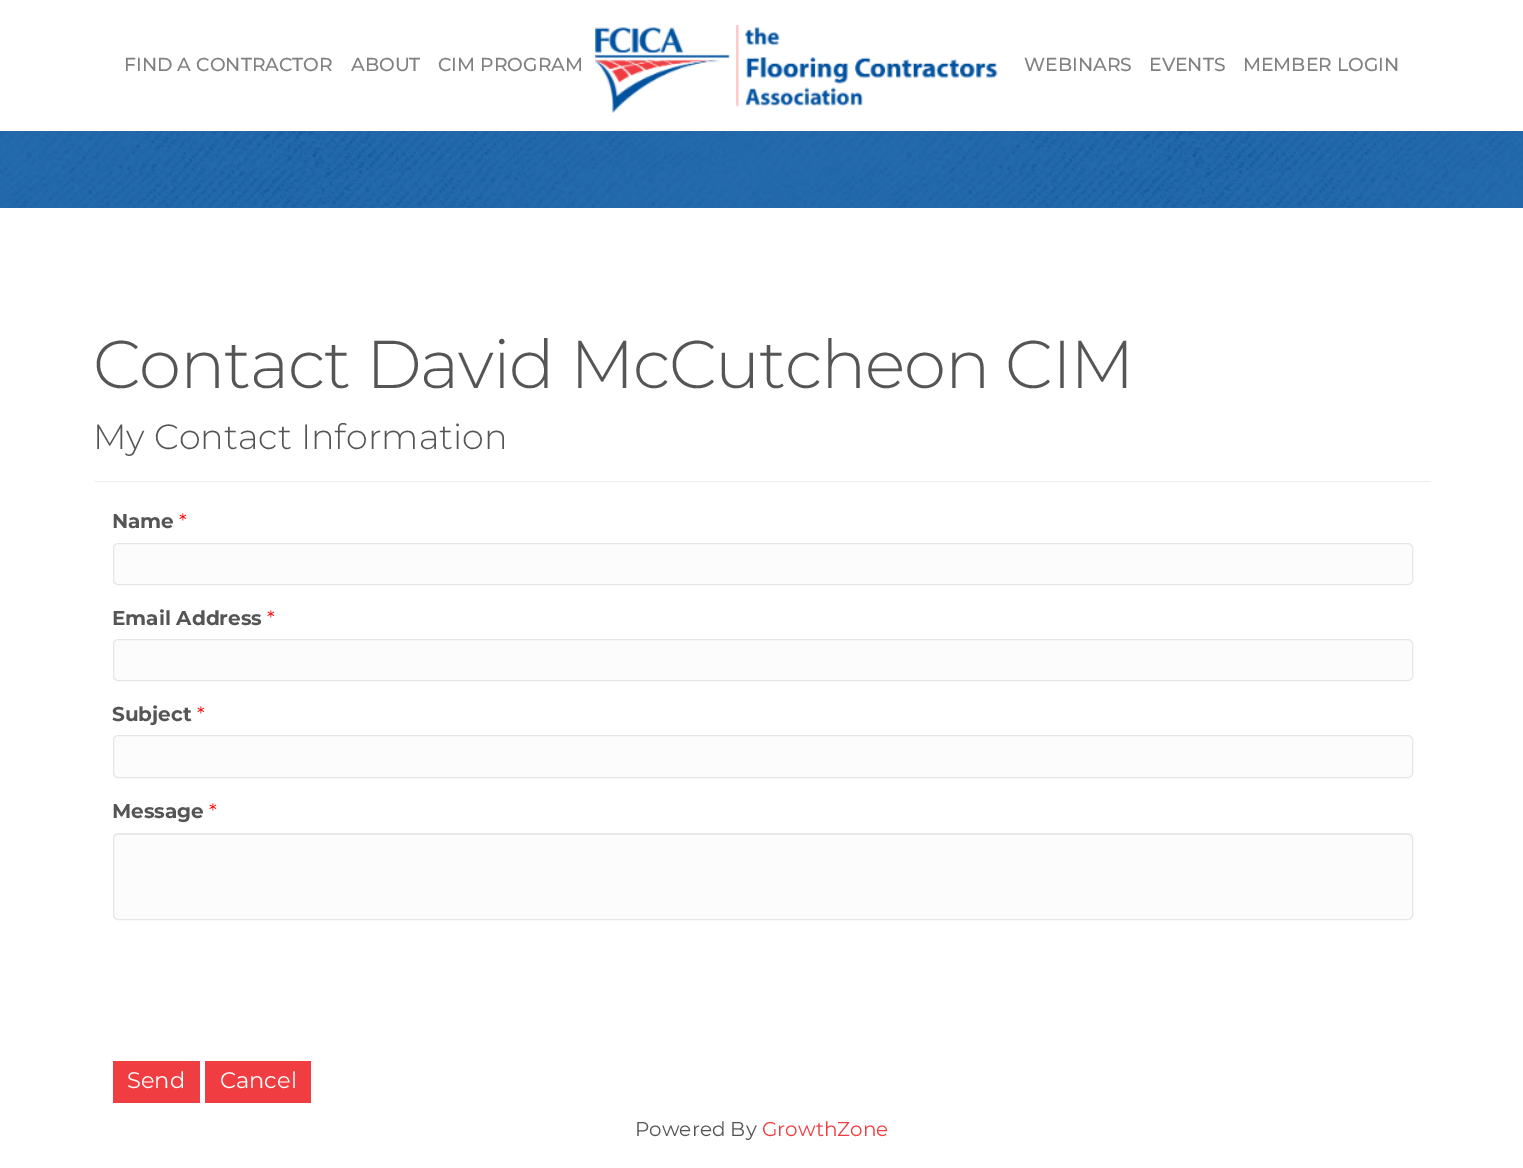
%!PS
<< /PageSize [1523 1168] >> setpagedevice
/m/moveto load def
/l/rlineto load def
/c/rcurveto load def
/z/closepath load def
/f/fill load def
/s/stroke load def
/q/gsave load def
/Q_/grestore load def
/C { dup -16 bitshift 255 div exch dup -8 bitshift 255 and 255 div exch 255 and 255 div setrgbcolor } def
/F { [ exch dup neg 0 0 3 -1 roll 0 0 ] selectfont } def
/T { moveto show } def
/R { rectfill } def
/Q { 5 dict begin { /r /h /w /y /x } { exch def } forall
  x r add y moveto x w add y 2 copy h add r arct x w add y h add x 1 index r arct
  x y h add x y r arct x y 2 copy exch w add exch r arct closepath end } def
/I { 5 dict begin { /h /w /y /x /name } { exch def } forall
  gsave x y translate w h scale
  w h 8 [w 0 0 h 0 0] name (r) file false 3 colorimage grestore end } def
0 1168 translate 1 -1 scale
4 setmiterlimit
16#FFFFFF C
0 0 1523 1168 R
16#246AAC C
0 131 1523 77 R
/Montserrat-Medium 18.75 F
16#808080 C
(FIND A CONTRACTOR) 124 71 T
(ABOUT) 351 71 T
(CIM PROGRAM) 438 71 T
(1.rgb) 595 25 403 88 I
(WEBINARS) 1024 71 T
(EVENTS) 1149 71 T
(MEMBER LOGIN) 1243 71 T
(2.rgb) 0 131 1523 77 I
/Montserrat-Light 67.5 F
16#555555 C
93 388 m -1.25 0 (Contact David McCutcheon CIM) ashow
/Montserrat-Light 35 F
(My Contact Information) 93 449 T
16#EEEEEE C
94 481 1337 1 R
/Montserrat-Bold 20 F
16#555555 C
(Name) 112 528 T
/Montserrat-Regular 20 F
16#FF0000 C
(*) 179 528 T
16#FCFCFC C
113.5 543.5 1299 41 4.5 Q q f Q_
16#E6E6E6 C
s
/Montserrat-Bold 20 F
16#555555 C
(Email Address) 112 625 T
/Montserrat-Regular 20 F
16#FF0000 C
(*) 267 625 T
16#FCFCFC C
113.5 639.5 1299 41 4.5 Q q f Q_
16#E6E6E6 C
s
/Montserrat-Bold 20 F
16#555555 C
(Subject) 112 721 T
/Montserrat-Regular 20 F
16#FF0000 C
(*) 197 721 T
16#FCFCFC C
113.5 735.5 1299 42 4.5 Q q f Q_
16#E6E6E6 C
s
/Montserrat-Bold 20 F
16#555555 C
(Message) 112 818 T
/Montserrat-Regular 20 F
16#FF0000 C
(*) 209 818 T
16#FCFCFC C
113 833 1300 87 5 Q f
16#E9E9E9 C
118 835 m 1290 0 l 2 0 3 2 3 4 c 0 -1 l 0 -2 -2 -4 -4 -4 c -1289 0 l -2 0 -4 2 -4 4 c 0 1 l 0 -2 1 -4 4 -4 c z f
16#E6E6E6 C
113.5 833.5 1299 86 4.5 Q s
16#EF3D42 C
113 1061 87 42 R
/Montserrat-Regular 22.5 F
16#FFFFFF C
(Send) 127 1088 T
16#EF3D42 C
205 1061 106 42 R
16#FFFFFF C
(Cancel) 220 1088 T
/Montserrat-Regular 20 F
16#555555 C
(Powered By) 635 1136 T
16#EF3D42 C
(GrowthZone) 762 1136 T
showpage
